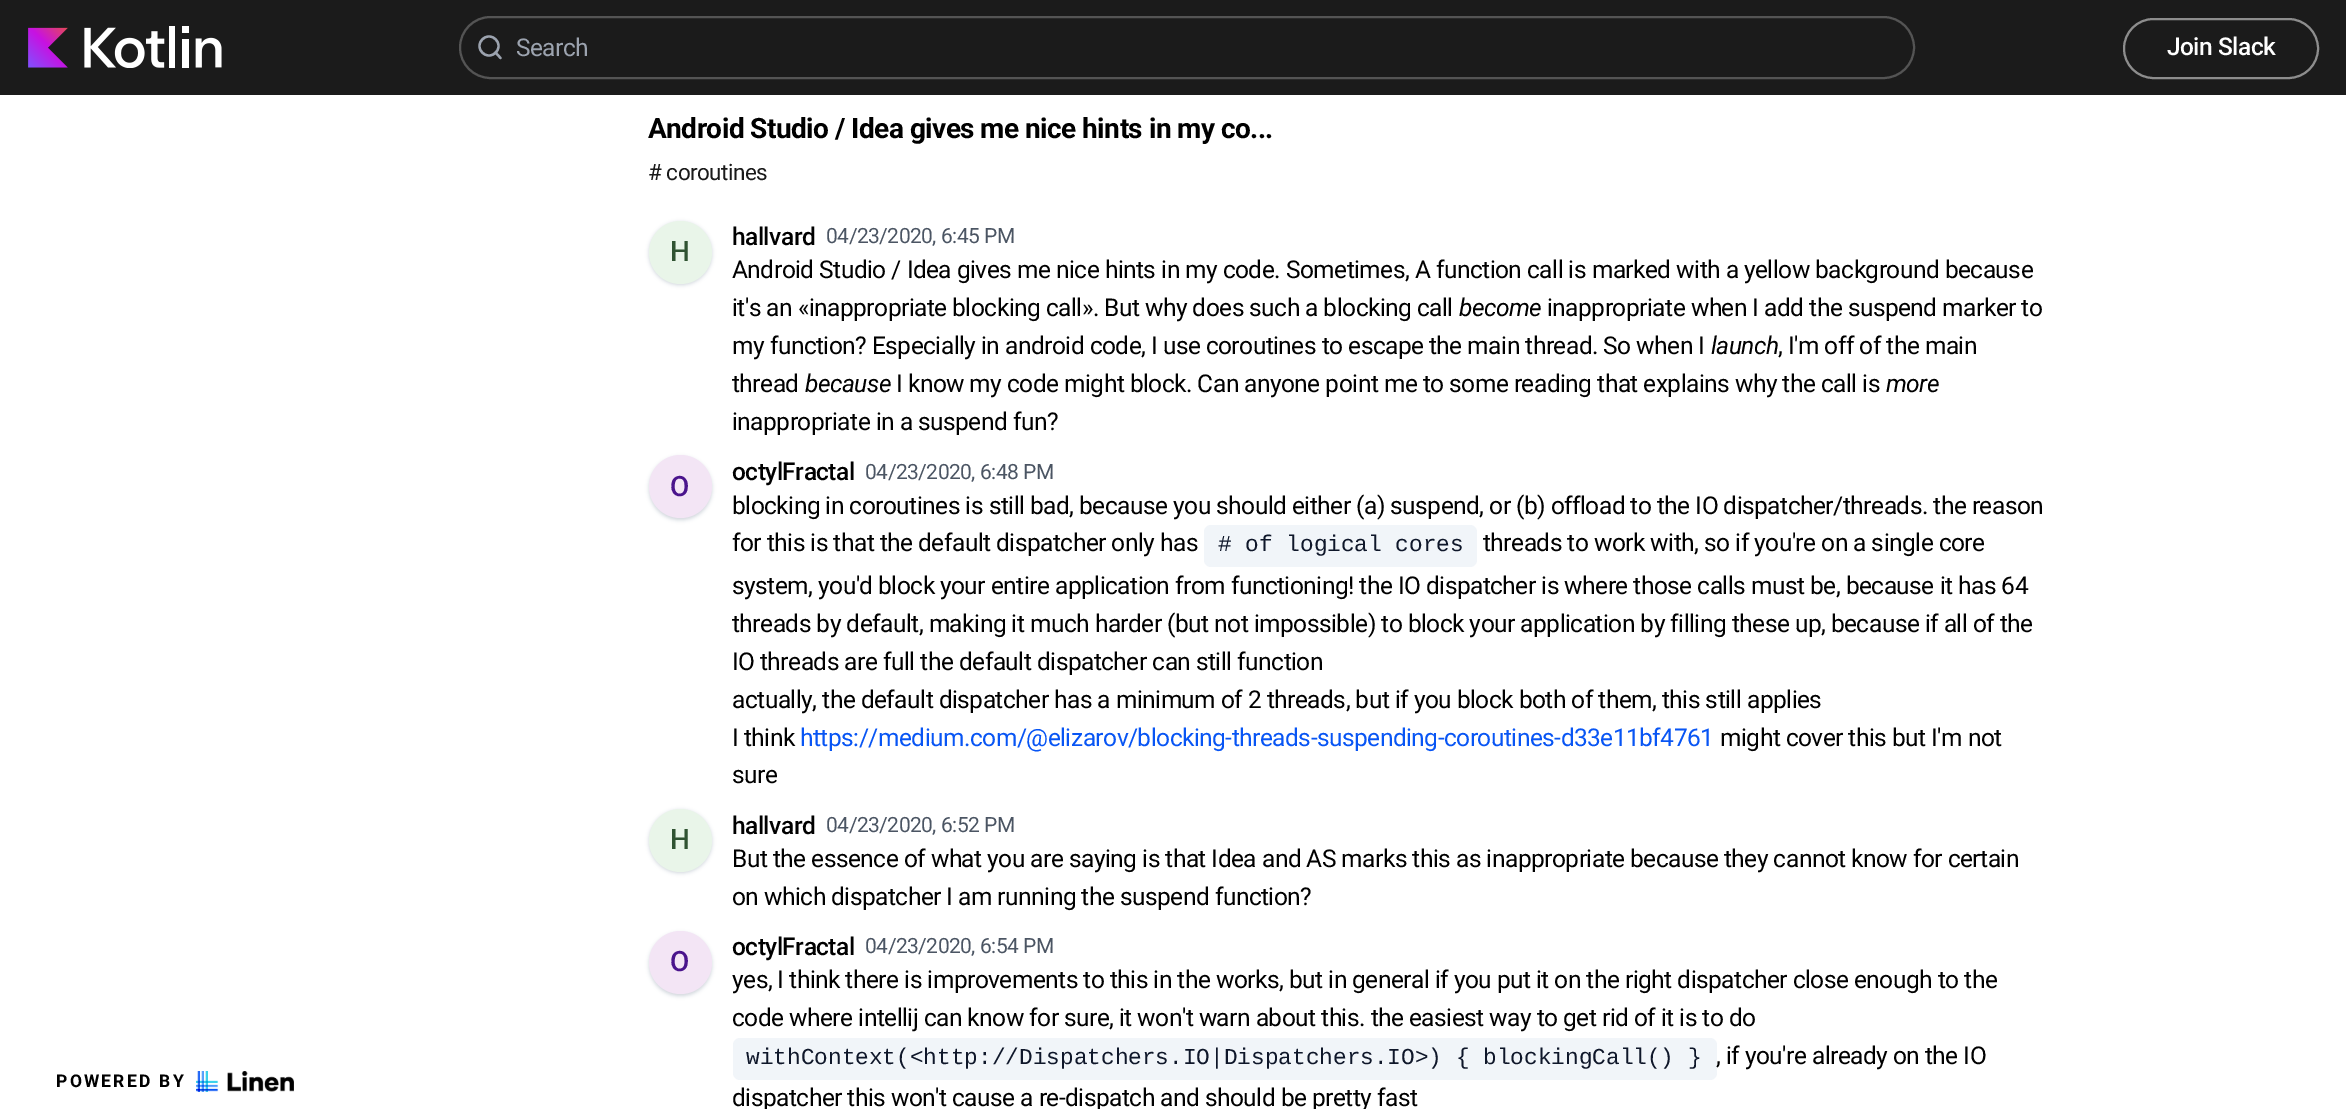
%!PS
<< /PageSize [2346 1109] /PageUsesTransparency true >> setpagedevice
/m/moveto load def
/l/rlineto load def
/f/fill load def
/s/stroke load def
/w/setlinewidth load def
/C { dup -16 bitshift 255 div exch dup -8 bitshift 255 and 255 div exch 255 and 255 div setrgbcolor } def
/F { [ exch dup neg 0 0 3 -1 roll 0 0 ] selectfont } def
/T { moveto show } def
/R { rectfill } def
/A { dup .setfillconstantalpha .setstrokeconstantalpha } def
/O { newpath 0 360 arc closepath } def
/Q { 5 dict begin { /r /h /w /y /x } { exch def } forall
  x r add y moveto x w add y 2 copy h add r arct x w add y h add x 1 index r arct
  x y h add x y r arct x y 2 copy exch w add exch r arct closepath end } def
/S { 12 dict begin { /a /b /q /h /w /y /x } { exch def } forall gsave /was 0 def
  9 -2 -9 { dup b mul 4 div /e exch def 1 sub .425 mul 2.718 exch exp 1 add a .99 .min exch div /now exch def
    1 1 now sub 1 was sub div sub A /was now def
    w h .min e 2 mul add 0 gt { x e sub y e sub w e 2 mul add h e 2 mul add
      q e add b .6 mul add w h .min 2 div e add .min 0 .max Q fill } if } for grestore end } def
/I { 5 dict begin { /h /w /y /x /name } { exch def } forall
  gsave x y translate w h scale
  w h 8 [w 0 0 h 0 0] name (r) file false 3 colorimage grestore end } def
0 .pushpdf14devicefilter
0 1109 translate 1 -1 scale
4 setmiterlimit
16#FFFFFF C
0 0 2346 1109 R
16#1B1B1B C
0 0 2346 95 R
(1.rgb) 28 26 194 42 I
16#545454 C
2 w
460 17 1454 61 30.5 Q s
16#9CA3AF C
2.3 w
489 46 9.5 O s
1 setlinecap
1 setlinejoin
500.5 58 m -5 -5.5 l s
/Roboto-Regular 24.5 F
516 56 m -.53 0 (Search) ashow
16#8D8D8D C
2 w
0 setlinecap
0 setlinejoin
2124 19 194 59 29.5 Q s
/Roboto-Medium 24.5 F
16#FFFFFF C
2167 55 m -.53 0 (Join Slack) ashow
/Roboto-Bold 17.5 F
16#000000 C
56 1087 m 2.25 0 (POWERED BY) ashow
(2.rgb) 196 1071 98 21 I
/Roboto-Bold 28 F
648 138 m -.53 0 (Android Studio / Idea gives me nice hints in my co...) ashow
/Roboto-Regular 22.5 F
16#1A1A1A C
648 180 m -.53 0 (# coroutines) ashow
16#D1D5DB C
649 222 63 63 31.5 2 1 S
16#E9F5E9 C
680.5 252.5 31.5 O f
/Roboto-Medium 28 F
16#305332 C
670 261 m -.53 0 (H) ashow
/Roboto-Medium 24.5 F
16#000000 C
732 245 m -.53 0 (hallvard) ashow
/Roboto-Regular 21 F
16#4B5563 C
826 243 m -.53 0 (04/23/2020, 6:45 PM) ashow
/Roboto-Regular 24.5 F
16#000000 C
732 278 m -.53 0 (Android Studio / Idea gives me nice hints in my code. Sometimes, A function call is marked with a yellow background because) ashow
732 316 m -.53 0 (it's an «inappropriate blocking call». But why does such a blocking call) ashow
/Roboto-Italic 24.5 F
1459 316 m -.53 0 (become) ashow
/Roboto-Regular 24.5 F
1547 316 m -.53 0 (inappropriate when I add the suspend marker to) ashow
732 354 m -.53 0 (my function? Especially in android code, I use coroutines to escape the main thread. So when I) ashow
/Roboto-Italic 24.5 F
1711 354 m -.53 0 (launch) ashow
/Roboto-Regular 24.5 F
1778 354 m -.53 0 (, I'm off of the main) ashow
732 392 m -.53 0 (thread) ashow
/Roboto-Italic 24.5 F
805 392 m -.53 0 (because) ashow
/Roboto-Regular 24.5 F
896 392 m -.53 0 (I know my code might block. Can anyone point me to some reading that explains why the call is) ashow
/Roboto-Italic 24.5 F
1886 392 m -.53 0 (more) ashow
/Roboto-Regular 24.5 F
732 430 m -.53 0 (inappropriate in a suspend fun?) ashow
16#D1D5DB C
649 457 63 63 31.5 2 1 S
16#F3E5F5 C
680.5 486.5 31.5 O f
/Roboto-Medium 28 F
16#4A148C C
670 496 m -.53 0 (O) ashow
/Roboto-Medium 24.5 F
16#000000 C
732 480 m -.53 0 (octylFractal) ashow
/Roboto-Regular 21 F
16#4B5563 C
865 479 m -.53 0 (04/23/2020, 6:48 PM) ashow
/Roboto-Regular 24.5 F
16#000000 C
732 514 m -.53 0 (blocking in coroutines is still bad, because you should either \(a\) suspend, or \(b\) offload to the IO dispatcher/threads. the reason) ashow
732 551 m -.53 0 (for this is that the default dispatcher only has) ashow
16#F1F5F9 C
1204 525 273 42 7 Q f
/LiberationMono-Regular 22.75 F
16#0F172A C
(# of logical cores) 1218 551 T
/Roboto-Regular 24.5 F
16#000000 C
1483 551 m -.53 0 (threads to work with, so if you're on a single core) ashow
732 594 m -.53 0 (system, you'd block your entire application from functioning! the IO dispatcher is where those calls must be, because it has 64) ashow
732 632 m -.53 0 (threads by default, making it much harder \(but not impossible\) to block your application by filling these up, because if all of the) ashow
732 670 m -.53 0 (IO threads are full the default dispatcher can still function) ashow
732 708 m -.53 0 (actually, the default dispatcher has a minimum of 2 threads, but if you block both of them, this still applies) ashow
732 746 m -.53 0 (I think) ashow
16#0855F4 C
800 746 m -.53 0 (https://medium.com/@elizarov/blocking-threads-suspending-coroutines-d33e11bf4761) ashow
16#000000 C
1720 746 m -.53 0 (might cover this but I'm not) ashow
732 783 m -.53 0 (sure) ashow
16#D1D5DB C
649 810 63 63 31.5 2 1 S
16#E9F5E9 C
680.5 840.5 31.5 O f
/Roboto-Medium 28 F
16#305332 C
670 849 m -.53 0 (H) ashow
/Roboto-Medium 24.5 F
16#000000 C
732 834 m -.53 0 (hallvard) ashow
/Roboto-Regular 21 F
16#4B5563 C
826 832 m -.53 0 (04/23/2020, 6:52 PM) ashow
/Roboto-Regular 24.5 F
16#000000 C
732 867 m -.53 0 (But the essence of what you are saying is that Idea and AS marks this as inappropriate because they cannot know for certain) ashow
732 905 m -.53 0 (on which dispatcher I am running the suspend function?) ashow
16#D1D5DB C
649 933 63 63 31.5 2 1 S
16#F3E5F5 C
680.5 962.5 31.5 O f
/Roboto-Medium 28 F
16#4A148C C
670 971 m -.53 0 (O) ashow
/Roboto-Medium 24.5 F
16#000000 C
732 955 m -.53 0 (octylFractal) ashow
/Roboto-Regular 21 F
16#4B5563 C
865 953 m -.53 0 (04/23/2020, 6:54 PM) ashow
/Roboto-Regular 24.5 F
16#000000 C
732 988 m -.53 0 (yes, I think there is improvements to this in the works, but in general if you put it on the right dispatcher close enough to the) ashow
732 1026 m -.53 0 (code where intellij can know for sure, it won't warn about this. the easiest way to get rid of it is to do) ashow
16#F1F5F9 C
733 1038 984 42 7 Q f
/LiberationMono-Regular 22.75 F
16#0F172A C
(withContext\(<http://Dispatchers.IO|Dispatchers.IO>\) { blockingCall\(\) }) 746 1064 T
/Roboto-Regular 24.5 F
16#000000 C
1716 1064 m -.53 0 (, if you're already on the IO) ashow
732 1106 m -.53 0 (dispatcher this won't cause a re-dispatch and should be pretty fast) ashow
.poppdf14devicefilter showpage
